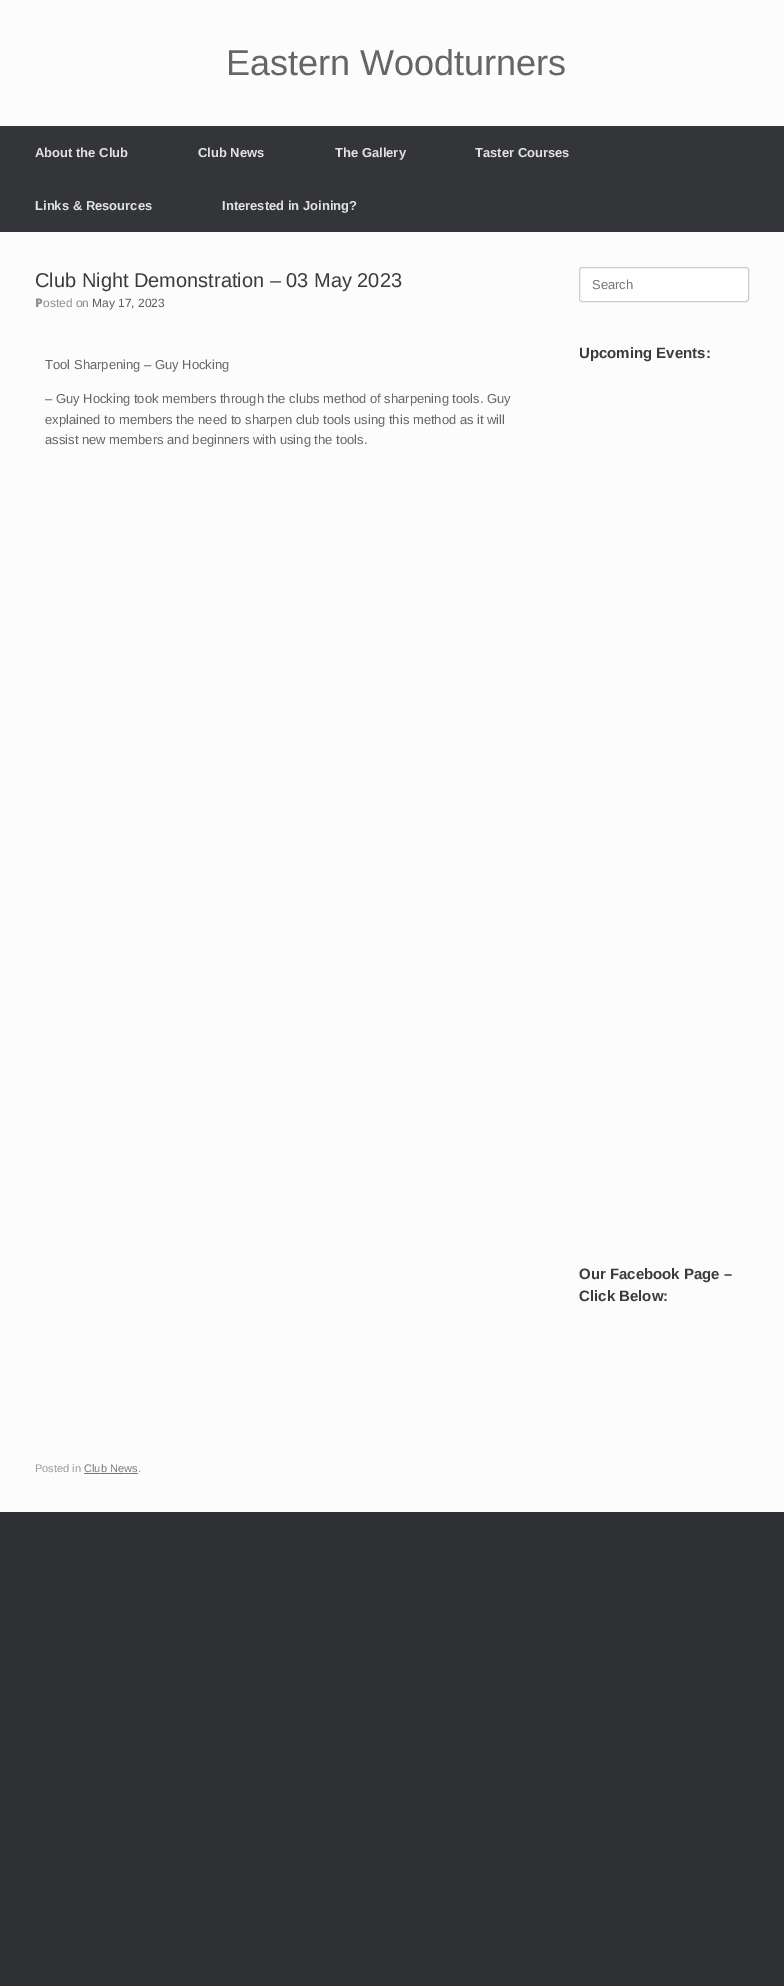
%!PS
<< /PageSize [784 1986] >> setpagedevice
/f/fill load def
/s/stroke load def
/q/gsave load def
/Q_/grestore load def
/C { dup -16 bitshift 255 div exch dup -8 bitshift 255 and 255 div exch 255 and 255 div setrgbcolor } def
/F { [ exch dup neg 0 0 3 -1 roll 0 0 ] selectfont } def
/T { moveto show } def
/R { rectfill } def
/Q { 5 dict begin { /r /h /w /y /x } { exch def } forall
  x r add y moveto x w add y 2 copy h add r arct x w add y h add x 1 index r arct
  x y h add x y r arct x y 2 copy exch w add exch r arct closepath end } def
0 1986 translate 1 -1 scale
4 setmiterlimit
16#2F3033 C
0 0 784 1986 R
16#FCFCFC C
0 0 784 126 R
/LiberationSans-Regular 36 F
16#666666 C
(Eastern Woodturners) 226 75 T
16#343538 C
0 126 784 106 R
/LiberationSans-Bold 13 F
16#E2E2E2 C
(About the Club) 35 157 T
(Club News) 198 157 T
(The Gallery) 335 157 T
(Taster Courses) 475 157 T
(Links & Resources) 35 210 T
(Interested in Joining?) 222 210 T
16#FCFCFC C
0 232 784 1280 R
/LiberationSans-Regular 20 F
16#3B3B3B C
(Club Night Demonstration – 03 May 2023) 35 287 T
/NotoSans-Black 12 F
16#8F8F8F C
(P) 35 307 T
/LiberationSans-Regular 12 F
(osted on) 43 307 T
16#5E5E5E C
(May 17, 2023) 92 307 T
/LiberationSans-Regular 13 F
16#666666 C
(Tool Sharpening – Guy Hocking) 45 369 T
(– Guy Hocking took members through the clubs method of sharpening tools. Guy) 45 403 T
(explained to members the need to sharpen club tools using this method as it will) 45 424 T
(assist new members and beginners with using the tools.) 45 444 T
/LiberationSans-Regular 11 F
16#999999 C
(Posted in) 35 1472 T
16#777777 C
(Club News) 84 1472 T
84 1473 54 1 R
16#999999 C
(.) 138 1472 T
16#FFFFFF C
579.5 267.5 169 34 2.5 Q q f Q_
16#CCCCCC C
s
/LiberationSans-Regular 13 F
16#777777 C
(Search) 592 289 T
/LiberationSans-Bold 15 F
16#3B3B3B C
(Upcoming Events:) 579 358 T
(Our Facebook Page –) 579 1279 T
(Click Below:) 579 1301 T
showpage
